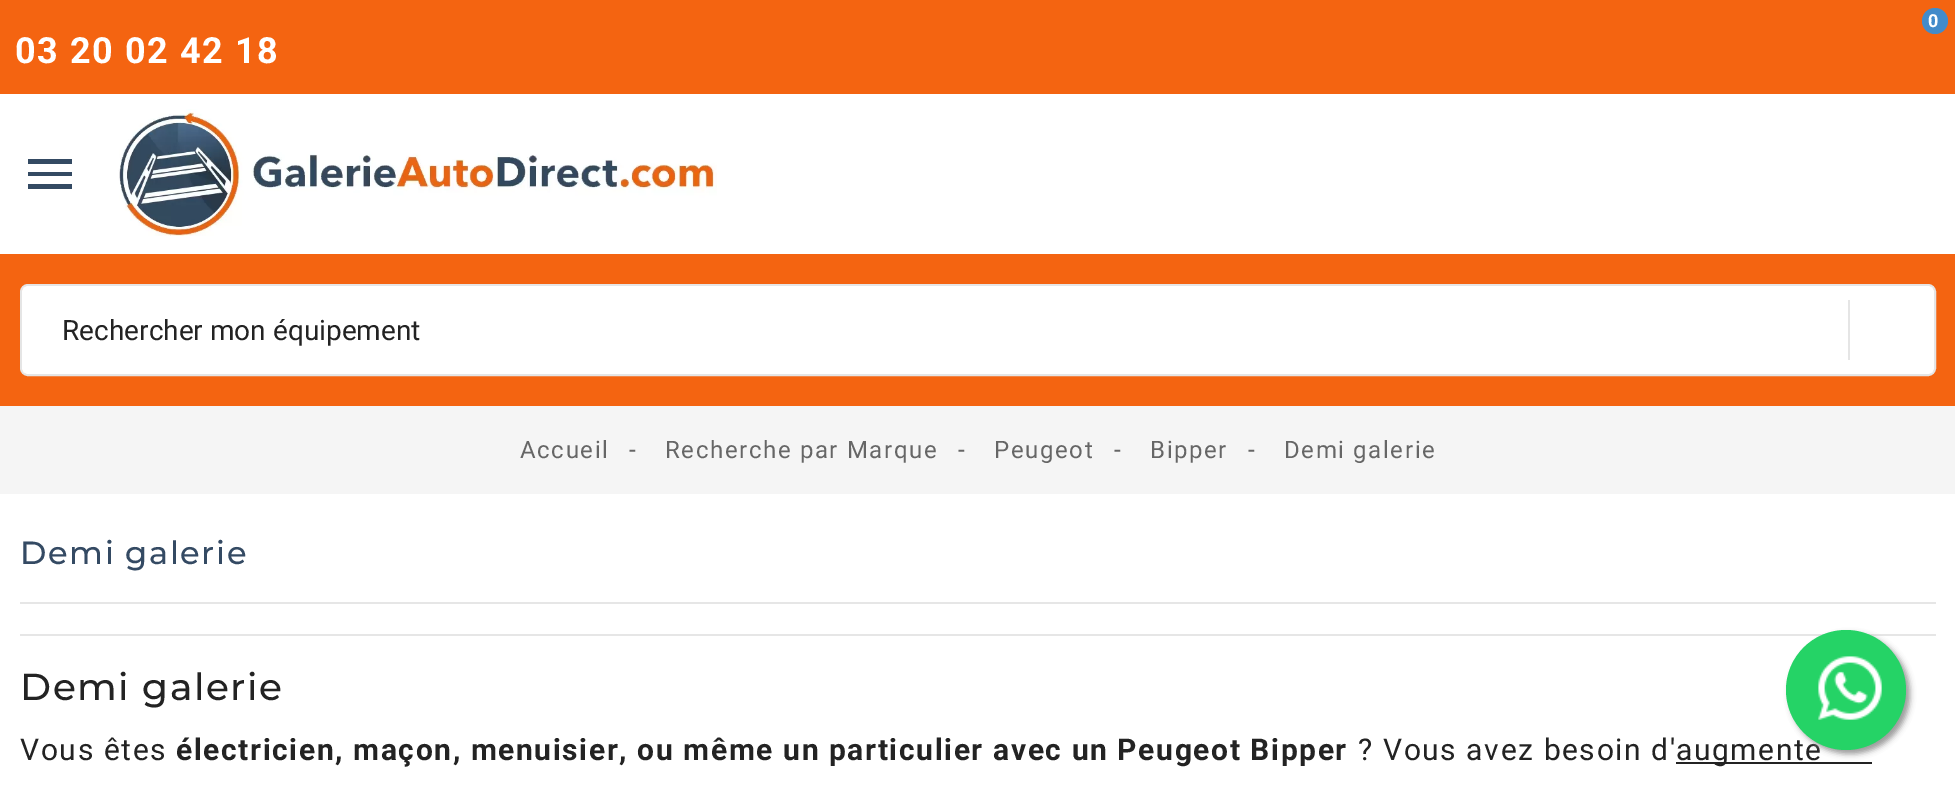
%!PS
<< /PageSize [1955 799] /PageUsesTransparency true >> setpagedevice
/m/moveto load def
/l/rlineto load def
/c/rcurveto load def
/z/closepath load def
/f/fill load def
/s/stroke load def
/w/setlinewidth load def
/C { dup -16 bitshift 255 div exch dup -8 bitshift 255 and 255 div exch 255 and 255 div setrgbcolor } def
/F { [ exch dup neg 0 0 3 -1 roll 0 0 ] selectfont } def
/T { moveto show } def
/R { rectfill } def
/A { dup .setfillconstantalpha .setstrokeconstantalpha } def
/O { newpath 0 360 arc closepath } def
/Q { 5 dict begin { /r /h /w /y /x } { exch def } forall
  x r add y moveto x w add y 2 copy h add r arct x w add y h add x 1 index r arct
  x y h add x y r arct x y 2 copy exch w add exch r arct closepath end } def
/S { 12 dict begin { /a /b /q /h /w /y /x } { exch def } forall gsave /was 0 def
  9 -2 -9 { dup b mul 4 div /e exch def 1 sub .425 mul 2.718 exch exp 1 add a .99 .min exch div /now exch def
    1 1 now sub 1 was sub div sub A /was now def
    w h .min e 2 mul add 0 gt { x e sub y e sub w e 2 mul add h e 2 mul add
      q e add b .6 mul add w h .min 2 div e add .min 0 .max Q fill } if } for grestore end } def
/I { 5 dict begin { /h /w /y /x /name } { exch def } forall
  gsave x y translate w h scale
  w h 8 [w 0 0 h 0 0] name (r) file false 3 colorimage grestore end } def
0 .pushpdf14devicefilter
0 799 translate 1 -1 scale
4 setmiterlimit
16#FFFFFF C
0 0 1955 799 R
16#F46411 C
0 0 1955 94 R
16#428BCA C
1935 21 13 O f
/Roboto-Bold 18 F
16#FFFFFF C
1928 27 m 1.6 0 (0) ashow
/Roboto-Bold 36 F
15 63 m 1.6 0 (03 20 02 42 18) ashow
16#344A63 C
28 189 m 44 0 l 0 -5 l -44 0 l z 28 176 m 44 0 l 0 -4 l -44 0 l z 28 159 m 0 5 l 44 0 l 0 -5 l z f
(1.rgb) 118 109 599 127 I
16#F46411 C
0 254 1955 152 R
16#E5E5E5 C
2 w
21 285 1914 90 7 Q s
16#FFFFFF C
28 286 m 1820 0 l 0 88 l -1820 0 l -3.5 0 -6 -2.5 -6 -6 c 0 -76 l 0 -3.5 2.5 -6 6 -6 c z f
/Roboto-Regular 28 F
16#232323 C
(Rechercher mon équipement) 62 340 T
16#FFFFFF C
1848 286 m 80 0 l 3.5 0 6 2.5 6 6 c 0 76 l 0 3.5 -2.5 6 -6 6 c -80 0 l z f
16#E5E5E5 C
1848 300 2 60 R
16#F5F5F5 C
0 406 1955 88 R
/Roboto-Regular 24 F
16#666666 C
520 458 m 1.6 0 (Accueil) ashow
629 458 m 1.6 0 (-) ashow
665 458 m 1.6 0 (Recherche par Marque) ashow
958 458 m 1.6 0 (-) ashow
994 458 m 1.6 0 (Peugeot) ashow
1114 458 m 1.6 0 (-) ashow
1150 458 m 1.6 0 (Bipper) ashow
1248 458 m 1.6 0 (-) ashow
1284 458 m 1.6 0 (Demi galerie) ashow
/Montserrat-Medium 32 F
16#344A63 C
20 564 m 1.6 0 (Demi galerie) ashow
16#E6E6E6 C
20 602 1916 2 R
20 634 1916 2 R
/Montserrat-Medium 37.5 F
16#232323 C
20 700 m 1.6 0 (Demi galerie) ashow
/Roboto-Regular 30 F
20 760 m 1.6 0 (Vous êtes) ashow
/Roboto-Bold 30 F
176 760 m 1.6 0 (électricien, maçon, menuisier, ou même un particulier avec un Peugeot Bipper) ashow
/Roboto-Regular 30 F
1358 760 m 1.6 0 (? Vous avez besoin d') ashow
1676 762 196 2 R
1676 760 m 1.6 0 (augmente) ashow
16#999999 C
1790 634 120 120 60 3 1 S
16#25D366 C
1846 690 60 O f
(2.rgb) 1818 656 64 64 I
.poppdf14devicefilter showpage
